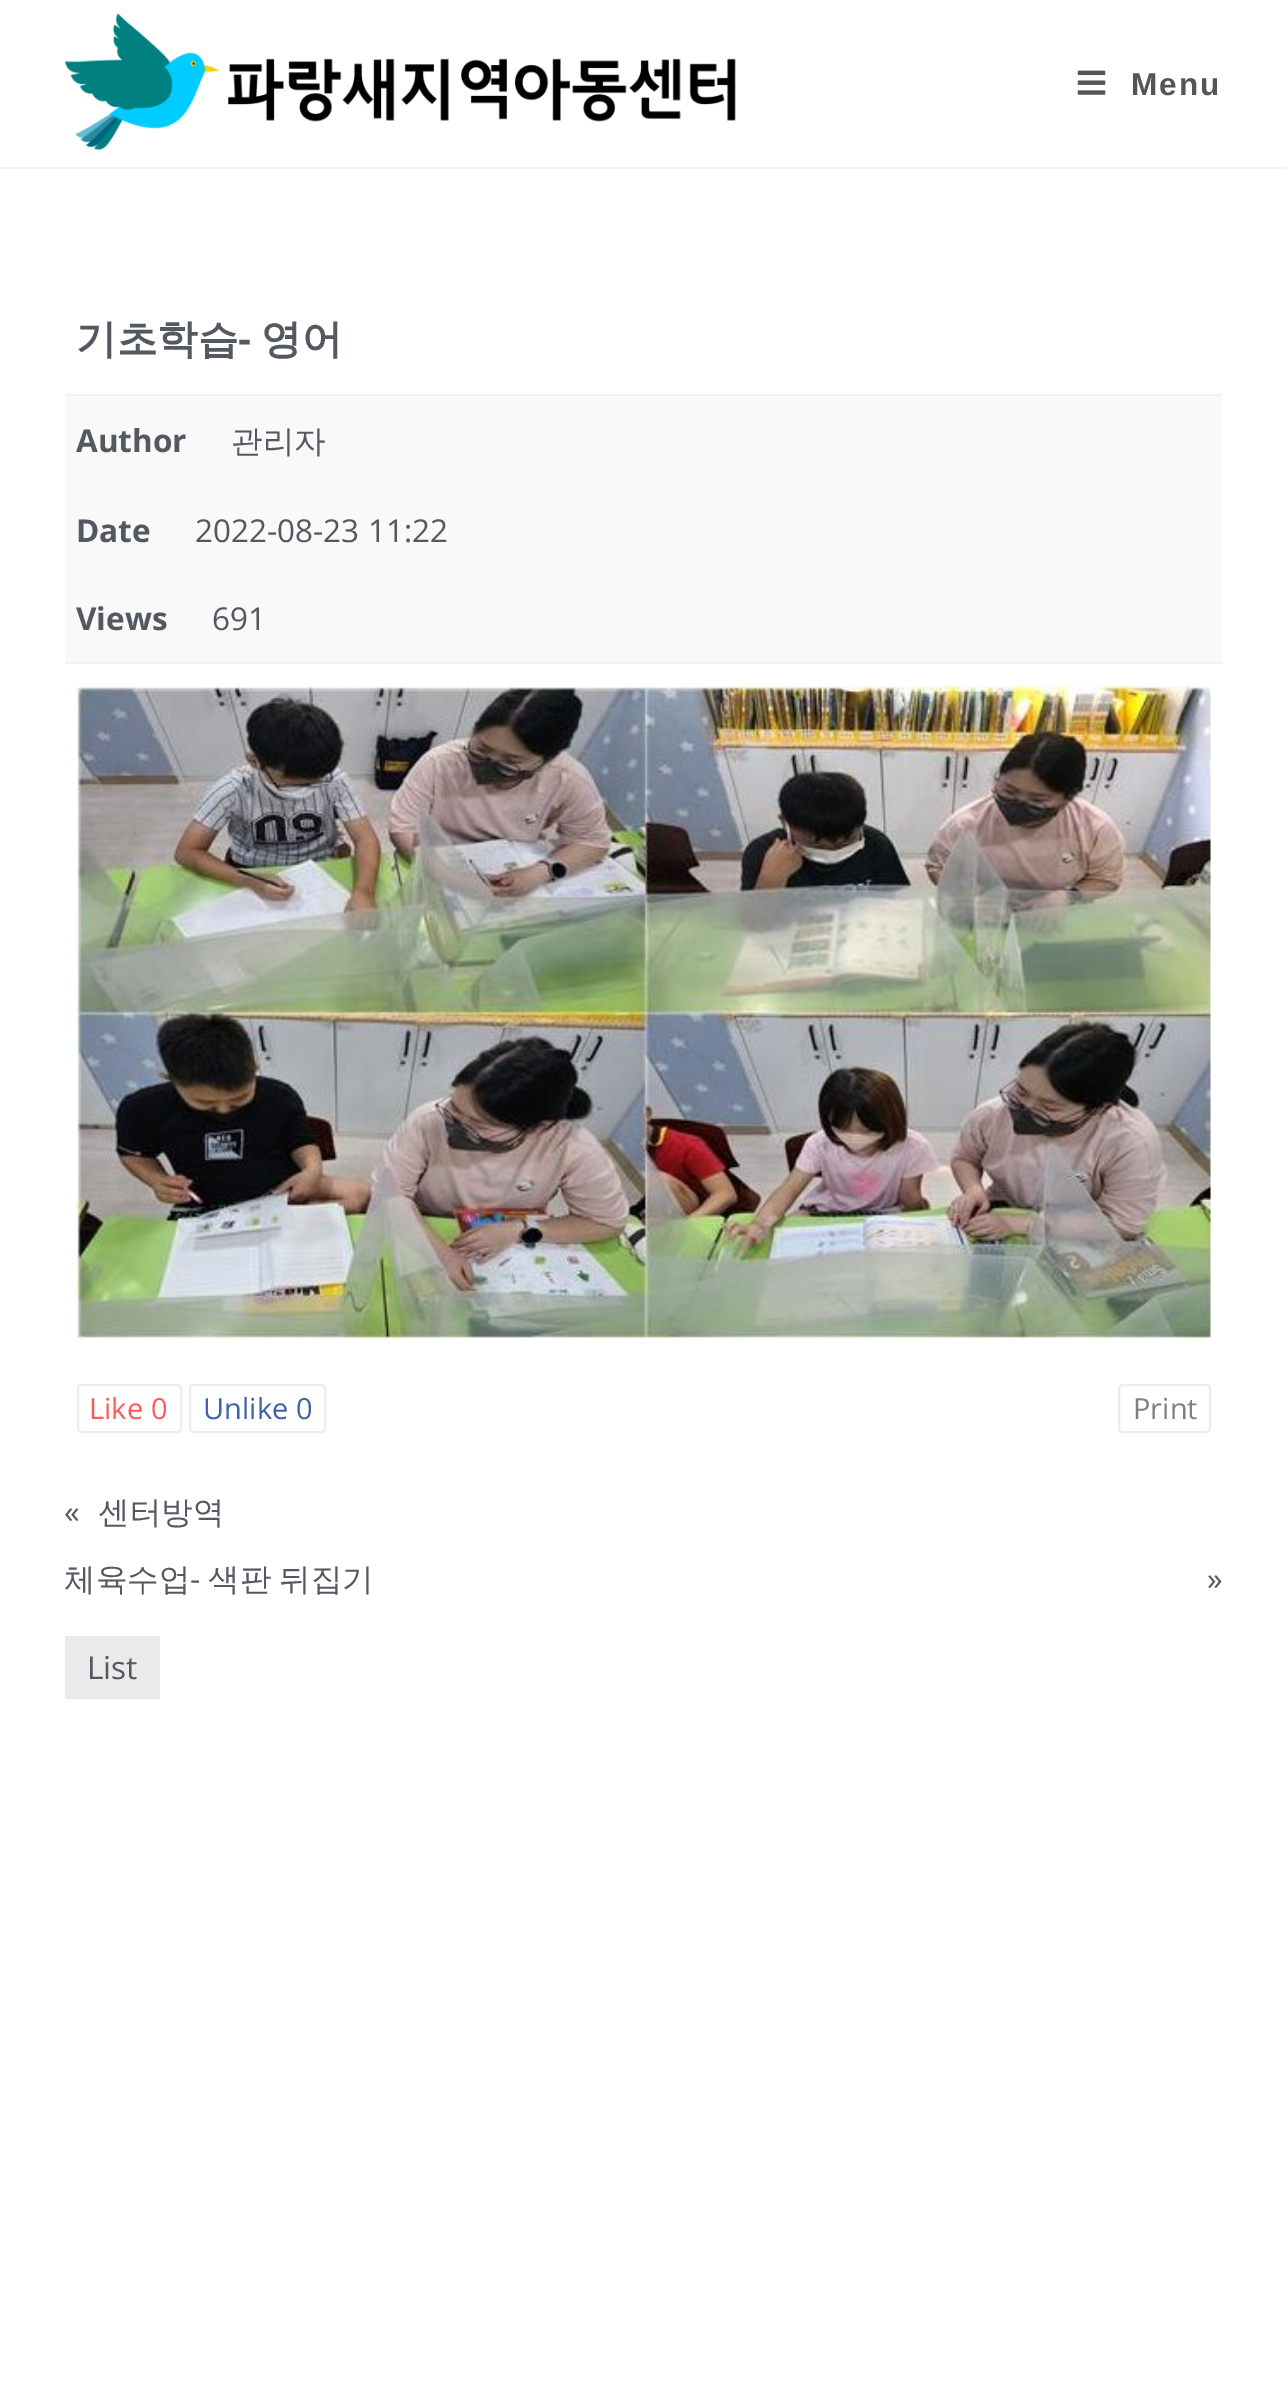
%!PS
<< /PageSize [1287 2384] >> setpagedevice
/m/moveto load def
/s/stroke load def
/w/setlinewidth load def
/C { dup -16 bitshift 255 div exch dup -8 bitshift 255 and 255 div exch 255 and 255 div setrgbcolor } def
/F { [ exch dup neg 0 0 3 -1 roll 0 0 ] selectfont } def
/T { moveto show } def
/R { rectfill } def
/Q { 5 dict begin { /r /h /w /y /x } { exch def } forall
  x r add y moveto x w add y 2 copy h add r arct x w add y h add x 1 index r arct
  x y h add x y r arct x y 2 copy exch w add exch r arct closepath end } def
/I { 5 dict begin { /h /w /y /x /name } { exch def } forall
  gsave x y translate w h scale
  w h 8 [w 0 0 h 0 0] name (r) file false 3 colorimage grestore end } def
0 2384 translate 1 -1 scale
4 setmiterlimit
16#FFFFFF C
0 0 1287 2384 R
16#F1F1F1 C
0 167 1287 2 R
(1.rgb) 65 13 671 138 I
(2.rgb) 1077 70 29 25 I
/LiberationSans-Bold 31.5 F
16#555555 C
1131 95 m 2 0 (Menu) ashow
/WenQuanYiZenHei-Bold 40.5 F
16#545861 C
(기초학습) 76 353 T
/OpenSans-Bold 40.5 F
(-) 238 353 T
/WenQuanYiZenHei-Bold 40.5 F
(영어) 261 353 T
16#F9F9F9 C
65 396 1157 266 R
16#F1F1F1 C
65 394 1157 2 R
65 662 1157 2 R
/OpenSans-Bold 31.5 F
16#545861 C
(Author) 76 452 T
/WenQuanYiZenHei-Medium 31.5 F
(관리자) 231 452 T
/OpenSans-Bold 31.5 F
(Date) 76 542 T
/OpenSans-Regular 31.5 F
(2022-08-23 11:22) 195 542 T
/OpenSans-Bold 31.5 F
(Views) 76 630 T
/OpenSans-Regular 31.5 F
(691) 212 630 T
(3.rgb) 76 686 1135 653 I
16#EDEDED C
2 w
78 1385 103 47 4 Q s
/OpenSans-Regular 29 F
16#FF5959 C
(Like 0) 89 1419 T
16#EDEDED C
190 1385 135 47 4 Q s
16#3D62AA C
(Unlike 0) 203 1419 T
16#EDEDED C
1119 1385 91 47 4 Q s
16#808080 C
(Print) 1133 1419 T
/OpenSans-Regular 31.5 F
16#545861 C
(«) 64 1523 T
/WenQuanYiZenHei-Medium 31.5 F
(센터방역) 98 1523 T
(체육수업) 64 1590 T
/OpenSans-Regular 31.5 F
(-) 190 1590 T
/WenQuanYiZenHei-Medium 31.5 F
208 1590 m -1 0 32 (색판 뒤집기) widthshow
/OpenSans-Regular 31.5 F
(») 1207 1590 T
16#EAEAEA C
65 1636 95 63 R
16#545861 C
(List) 87 1679 T
showpage
